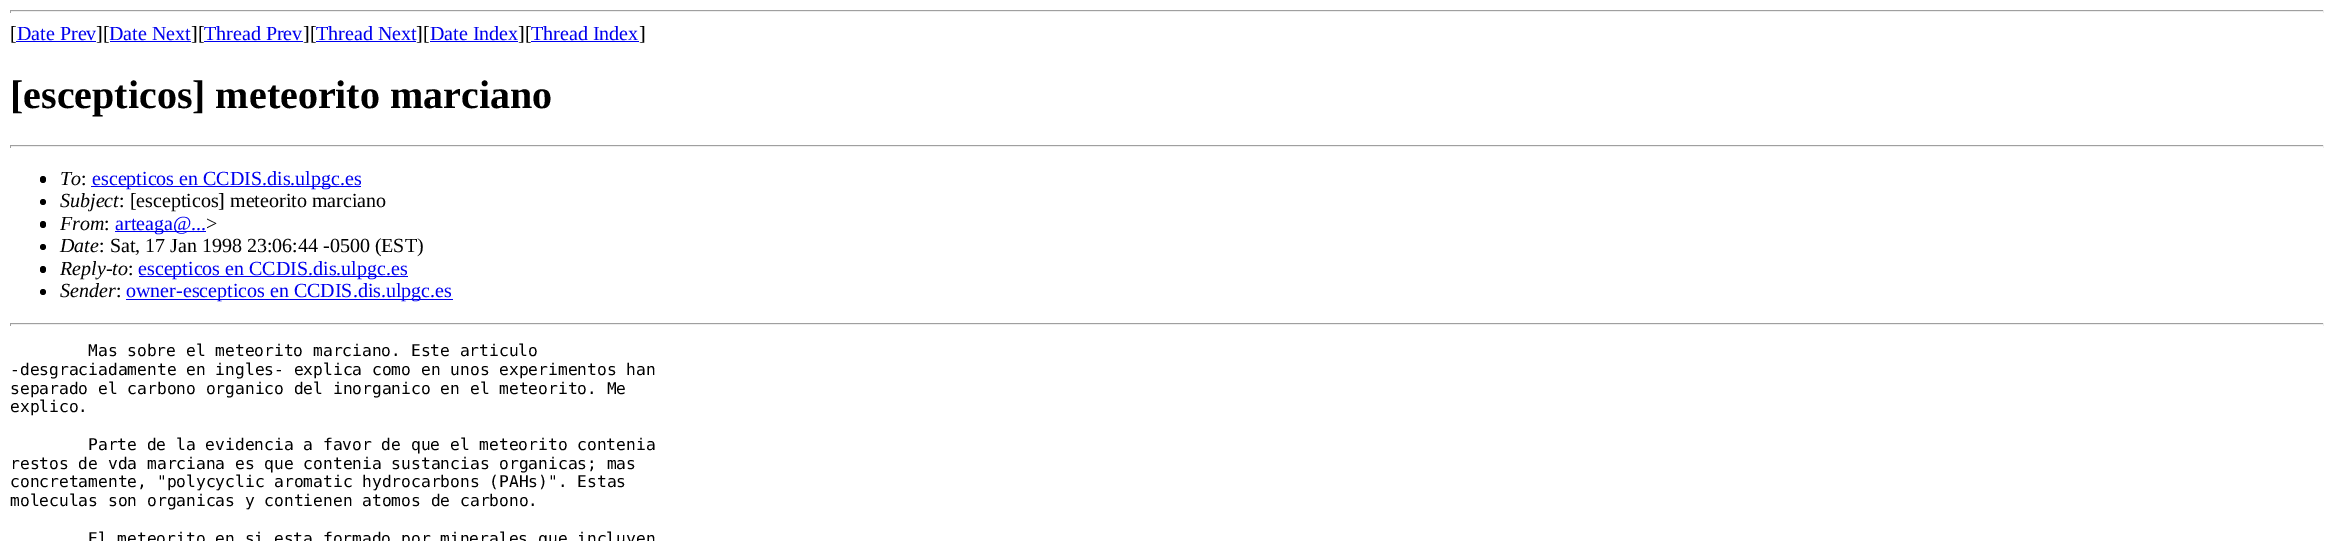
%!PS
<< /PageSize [2333 541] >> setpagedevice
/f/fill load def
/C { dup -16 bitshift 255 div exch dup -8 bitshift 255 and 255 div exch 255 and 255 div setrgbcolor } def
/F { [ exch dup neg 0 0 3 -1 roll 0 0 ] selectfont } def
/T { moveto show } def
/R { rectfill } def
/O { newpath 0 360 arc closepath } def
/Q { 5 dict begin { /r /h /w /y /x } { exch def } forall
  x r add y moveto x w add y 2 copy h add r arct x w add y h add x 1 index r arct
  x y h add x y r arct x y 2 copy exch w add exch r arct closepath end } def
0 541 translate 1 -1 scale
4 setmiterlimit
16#FFFFFF C
0 0 2333 541 R
16#9F9F9F C
10 10 2314 1 R
16#EEEEEE C
2323 10 1 3 R
10 11 2314 1 R
16#9F9F9F C
10 10 1 3 R
/LiberationSerif-Regular 20 F
16#000000 C
([) 10 40 T
16#0000EE C
(Date Prev) 17 40 T
16 41 80 1 R
16#000000 C
(][) 96 40 T
16#0000EE C
(Date Next) 109 40 T
110 41 81 1 R
16#000000 C
(][) 191 40 T
16#0000EE C
(Thread Prev) 204 40 T
204 41 99 1 R
16#000000 C
(][) 303 40 T
16#0000EE C
(Thread Next) 316 40 T
316 41 100 1 R
16#000000 C
(][) 416 40 T
16#0000EE C
(Date Index) 430 40 T
430 41 88 1 R
16#000000 C
(][) 518 40 T
16#0000EE C
(Thread Index) 531 40 T
531 41 108 1 R
16#000000 C
(]) 639 40 T
/LiberationSerif-Bold 40 F
([escepticos] meteorito marciano) 10 108 T
16#9F9F9F C
10 145 2314 1 R
16#EEEEEE C
2323 145 1 3 R
10 146 2314 1 R
16#9F9F9F C
10 145 1 3 R
16#000000 C
40 176 6 7 3 Q f
/LiberationSerif-Italic 20 F
(To) 60 185 T
/LiberationSerif-Regular 20 F
(:) 81 185 T
16#0000EE C
91 186 270 1 R
(escepticos en CCDIS.dis.ulpgc.es) 92 185 T
16#000000 C
43 202 3 O f
/LiberationSerif-Italic 20 F
(Subject) 60 207 T
/LiberationSerif-Regular 20 F
(: [escepticos] meteorito marciano) 119 207 T
40 221 6 7 3 Q f
/LiberationSerif-Italic 20 F
(From) 60 230 T
/LiberationSerif-Regular 20 F
(:) 104 230 T
16#0000EE C
115 231 91 1 R
(arteaga@...) 115 230 T
16#000000 C
(>) 206 230 T
43 247 3 O f
/LiberationSerif-Italic 20 F
(Date) 60 252 T
/LiberationSerif-Regular 20 F
(: Sat, 17 Jan 1998 23:06:44 -0500 \(EST\)) 99 252 T
40 266 6 7 3 Q f
/LiberationSerif-Italic 20 F
(Reply-to) 60 275 T
/LiberationSerif-Regular 20 F
(:) 128 275 T
16#0000EE C
139 276 269 1 R
(escepticos en CCDIS.dis.ulpgc.es) 138 275 T
16#000000 C
43 292 3 O f
/LiberationSerif-Italic 20 F
(Sender) 60 297 T
/LiberationSerif-Regular 20 F
(:) 116 297 T
16#0000EE C
126 299 327 1 R
(owner-escepticos en CCDIS.dis.ulpgc.es) 126 297 T
16#9F9F9F C
10 323 2314 1 R
16#EEEEEE C
2323 323 1 3 R
10 324 2314 1 R
16#9F9F9F C
10 323 1 3 R
/DejaVuSansMono-Regular 16.25 F
16#000000 C
(Mas sobre el meteorito marciano. Este articulo) 88 356 T
(-desgraciadamente en ingles- explica como en unos experimentos han) 10 375 T
(separado el carbono organico del inorganico en el meteorito. Me) 10 394 T
(explico.) 10 412 T
(Parte de la evidencia a favor de que el meteorito contenia) 88 450 T
(restos de vda marciana es que contenia sustancias organicas; mas) 10 469 T
(concretamente, "polycyclic aromatic hydrocarbons \(PAHs\)". Estas) 10 487 T
(moleculas son organicas y contienen atomos de carbono.) 10 506 T
(El meteorito en si esta formado por minerales que incluyen) 88 544 T
showpage
